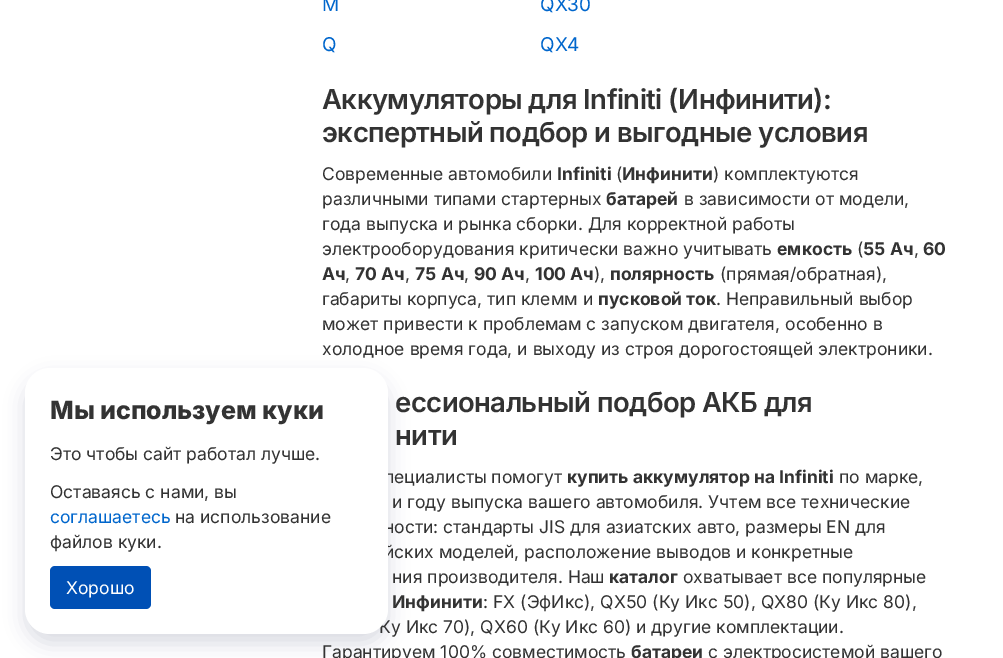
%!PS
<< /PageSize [1003 658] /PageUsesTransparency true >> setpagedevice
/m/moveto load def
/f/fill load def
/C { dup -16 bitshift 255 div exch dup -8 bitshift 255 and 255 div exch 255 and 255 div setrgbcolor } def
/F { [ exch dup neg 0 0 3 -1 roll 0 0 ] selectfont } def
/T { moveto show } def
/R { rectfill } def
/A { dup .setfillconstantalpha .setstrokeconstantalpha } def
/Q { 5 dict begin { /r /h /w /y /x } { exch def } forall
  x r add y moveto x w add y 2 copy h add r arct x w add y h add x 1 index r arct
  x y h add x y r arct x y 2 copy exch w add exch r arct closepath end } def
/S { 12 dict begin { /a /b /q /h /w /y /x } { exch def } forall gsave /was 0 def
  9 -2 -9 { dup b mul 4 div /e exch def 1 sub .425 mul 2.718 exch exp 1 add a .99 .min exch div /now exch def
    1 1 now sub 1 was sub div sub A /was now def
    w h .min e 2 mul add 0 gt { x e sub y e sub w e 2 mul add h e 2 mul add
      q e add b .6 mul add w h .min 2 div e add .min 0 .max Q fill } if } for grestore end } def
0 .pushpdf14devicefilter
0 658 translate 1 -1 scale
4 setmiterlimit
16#FFFFFF C
0 0 1003 658 R
16#1E2248 C
25 378 363 266 25 10 .16 S
/Inter-Regular 17.5 F
16#333333 C
(пециалисты помогут) 384 483 T
(ности: стандарты JIS для азиатских авто, размеры EN для) 384 533 T
(йских моделей, расположение выводов и конкретные) 384 558 T
(Ку Икс 70\), QX60 \(Ку Икс 60\) и другие комплектации.) 379 633 T
16#FFFFFF C
25 368 363 266 25 Q f
/Inter-ExtraBold 25 F
16#333333 C
(Мы используем куки) 50 419 T
/Inter-Regular 17.5 F
(Это чтобы сайт работал лучше.) 50 460 T
(Оставаясь с нами, вы) 50 498 T
16#0066CC C
(соглашаетесь) 50 523 T
16#333333 C
(на использование) 175 523 T
(файлов куки.) 50 548 T
16#0050B5 C
50 566 101 43 5 Q f
16#FFFFFF C
(Хорошо) 66 594 T
/Inter-Regular 19 F
16#0066CC C
(M) 322 11 T
(QX30) 540 11 T
(Q) 322 51 T
(QX4) 540 51 T
/Inter-SemiBold 27.5 F
16#333333 C
322 109 m -.55 0 (Аккумуляторы для Infiniti \(Инфинити\):) ashow
322 142 m -.55 0 (экспертный подбор и выгодные условия) ashow
/Inter-Regular 17.5 F
(Современные автомобили) 322 180 T
/Inter-Bold 17.5 F
(Infiniti) 557 180 T
/Inter-Regular 17.5 F
(\() 616 180 T
/Inter-Bold 17.5 F
(Инфинити) 622 180 T
/Inter-Regular 17.5 F
(\) комплектуются) 713 180 T
(различными типами стартерных) 322 205 T
/Inter-Bold 17.5 F
(батарей) 606 205 T
/Inter-Regular 17.5 F
(в зависимости от модели,) 684 205 T
(года выпуска и рынка сборки. Для корректной работы) 322 230 T
(электрооборудования критически важно учитывать) 322 255 T
/Inter-Bold 17.5 F
(емкость) 777 255 T
/Inter-Regular 17.5 F
(\() 857 255 T
/Inter-Bold 17.5 F
(55 Ач) 863 255 T
/Inter-Regular 17.5 F
(,) 914 255 T
/Inter-Bold 17.5 F
(60) 923 255 T
(Ач) 322 280 T
/Inter-Regular 17.5 F
(,) 345 280 T
/Inter-Bold 17.5 F
(70 Ач) 355 280 T
/Inter-Regular 17.5 F
(,) 405 280 T
/Inter-Bold 17.5 F
(75 Ач) 415 280 T
/Inter-Regular 17.5 F
(,) 464 280 T
/Inter-Bold 17.5 F
(90 Ач) 474 280 T
/Inter-Regular 17.5 F
(,) 525 280 T
/Inter-Bold 17.5 F
(100 Ач) 535 280 T
/Inter-Regular 17.5 F
(\),) 594 280 T
/Inter-Bold 17.5 F
(полярность) 610 280 T
/Inter-Regular 17.5 F
(\(прямая/обратная\),) 720 280 T
(габариты корпуса, тип клемм и) 322 305 T
/Inter-Bold 17.5 F
(пусковой ток) 598 305 T
/Inter-Regular 17.5 F
(. Неправильный выбор) 716 305 T
(может привести к проблемам с запуском двигателя, особенно в) 322 330 T
(холодное время года, и выходу из строя дорогостоящей электроники.) 322 355 T
/Inter-SemiBold 27.5 F
395 412 m -.55 0 (ессиональный подбор АКБ для) ashow
395 445 m -.55 0 (нити) ashow
/Inter-Bold 17.5 F
(купить аккумулятор на Infiniti) 567 483 T
/Inter-Regular 17.5 F
(по марке,) 839 483 T
(и году выпуска вашего автомобиля. Учтем все технические) 392 508 T
(ния производителя. Наш) 392 583 T
/Inter-Bold 17.5 F
(каталог) 609 583 T
/Inter-Regular 17.5 F
(охватывает все популярные) 683 583 T
/Inter-Bold 17.5 F
(Инфинити) 392 608 T
/Inter-Regular 17.5 F
(: FX \(ЭфИкс\), QX50 \(Ку Икс 50\), QX80 \(Ку Икс 80\),) 483 608 T
(Гарантируем 100% совместимость) 322 658 T
/Inter-Bold 17.5 F
(батареи) 631 658 T
/Inter-Regular 17.5 F
(с электросистемой вашего) 708 658 T
.poppdf14devicefilter showpage
